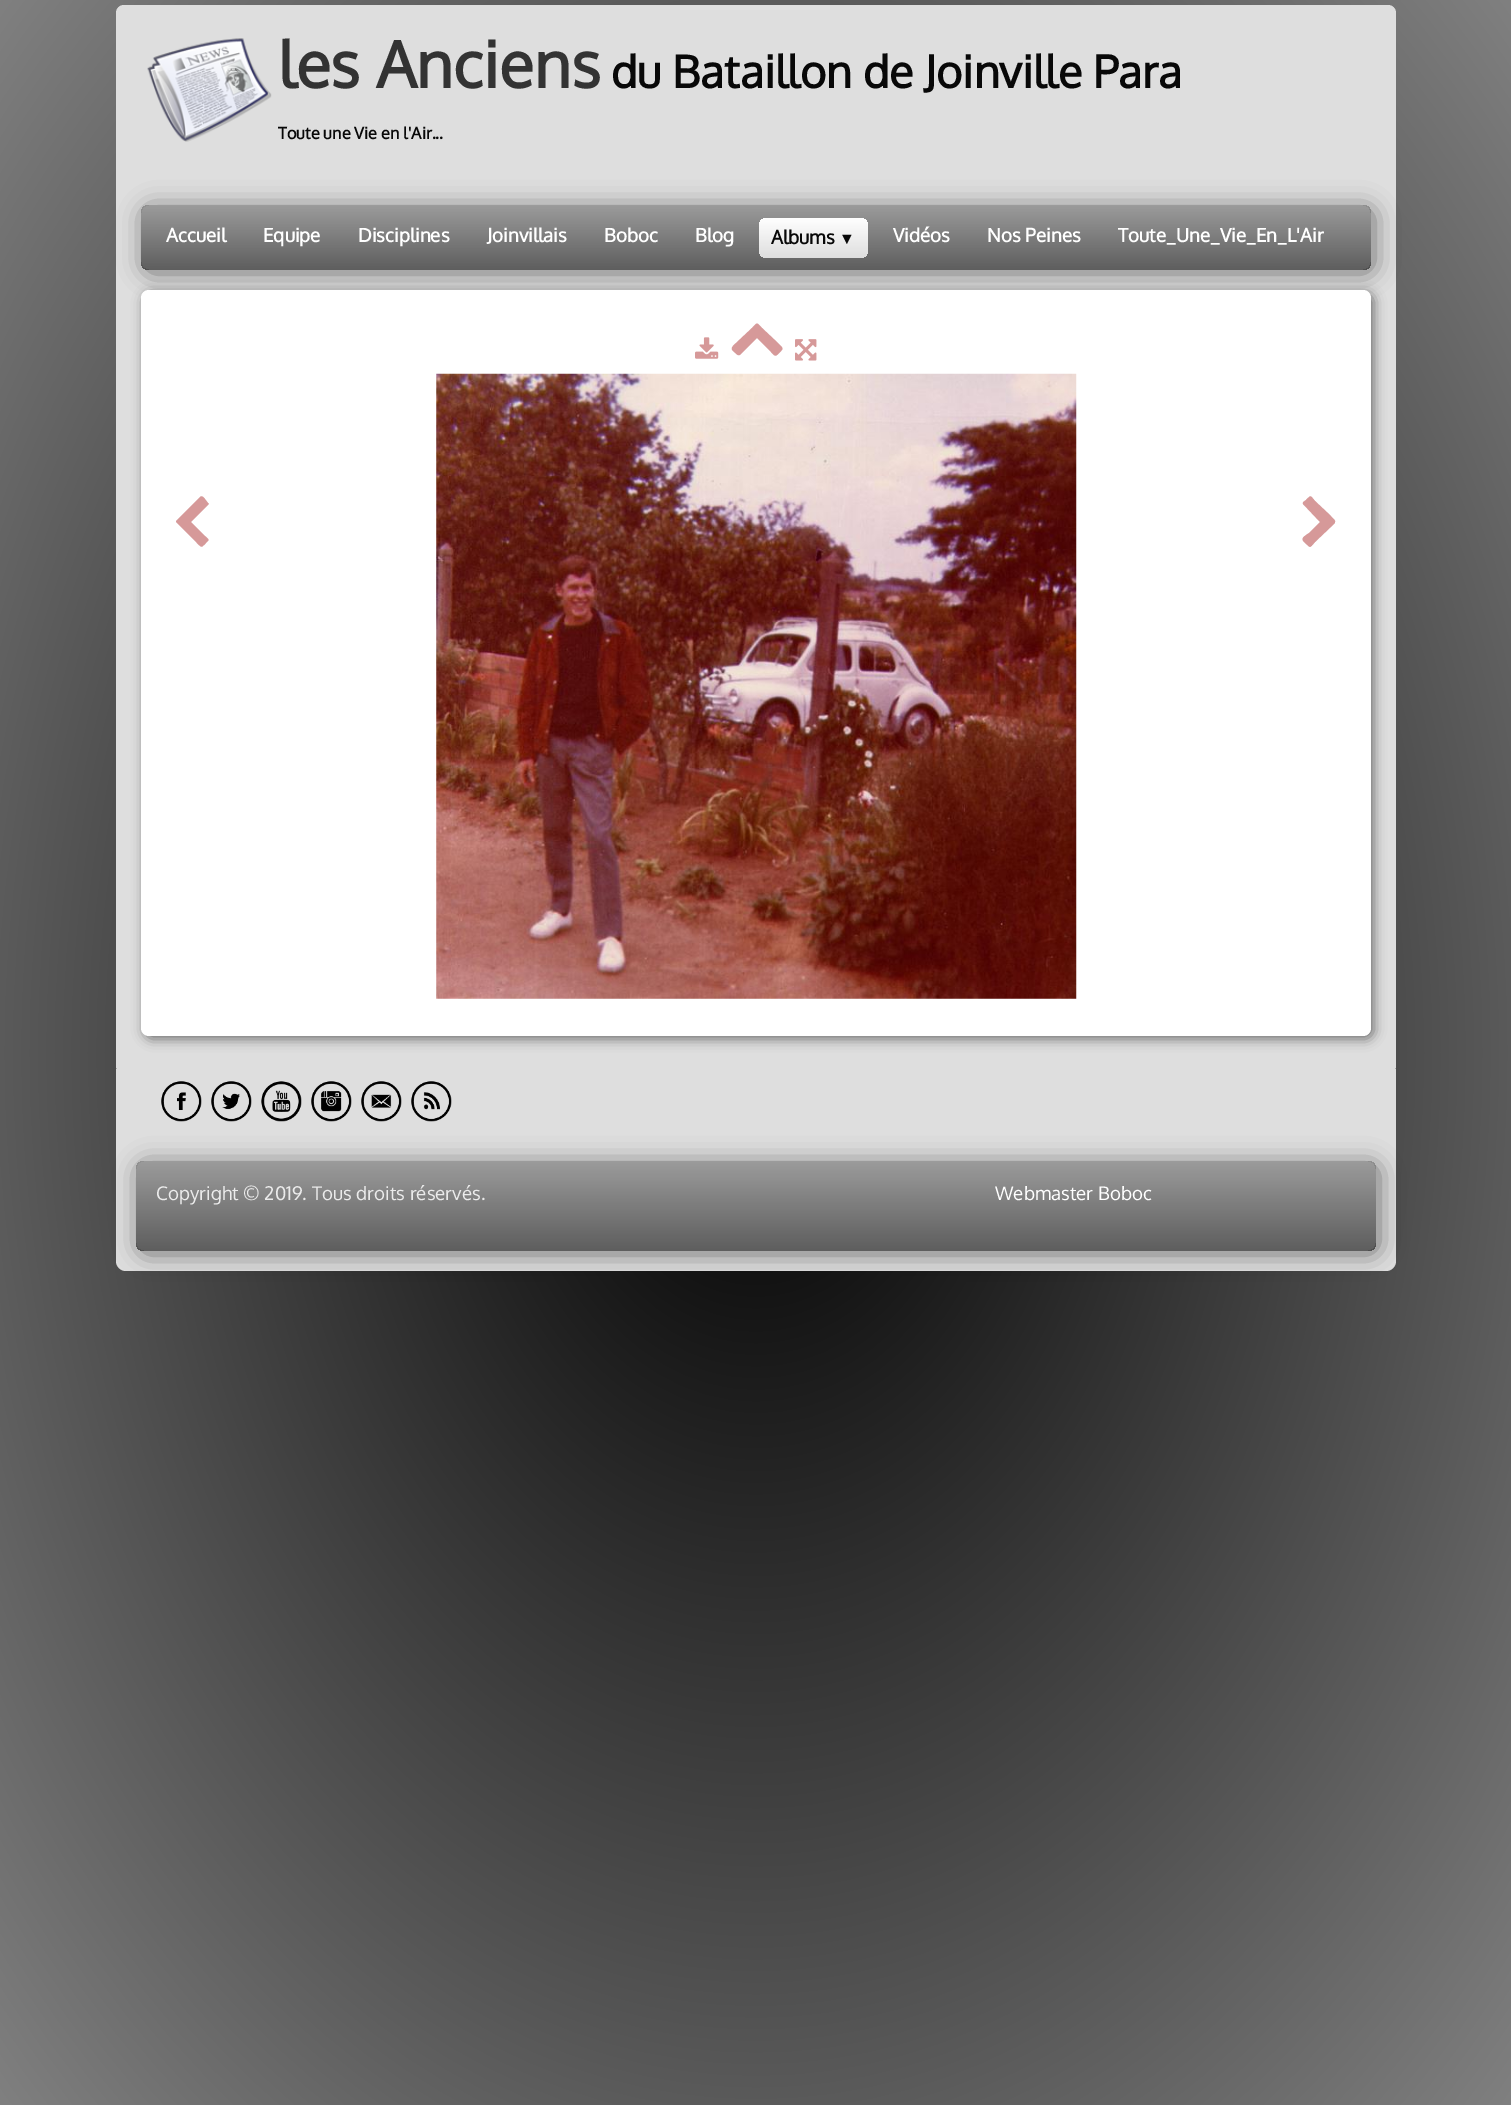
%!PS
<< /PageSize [1511 2105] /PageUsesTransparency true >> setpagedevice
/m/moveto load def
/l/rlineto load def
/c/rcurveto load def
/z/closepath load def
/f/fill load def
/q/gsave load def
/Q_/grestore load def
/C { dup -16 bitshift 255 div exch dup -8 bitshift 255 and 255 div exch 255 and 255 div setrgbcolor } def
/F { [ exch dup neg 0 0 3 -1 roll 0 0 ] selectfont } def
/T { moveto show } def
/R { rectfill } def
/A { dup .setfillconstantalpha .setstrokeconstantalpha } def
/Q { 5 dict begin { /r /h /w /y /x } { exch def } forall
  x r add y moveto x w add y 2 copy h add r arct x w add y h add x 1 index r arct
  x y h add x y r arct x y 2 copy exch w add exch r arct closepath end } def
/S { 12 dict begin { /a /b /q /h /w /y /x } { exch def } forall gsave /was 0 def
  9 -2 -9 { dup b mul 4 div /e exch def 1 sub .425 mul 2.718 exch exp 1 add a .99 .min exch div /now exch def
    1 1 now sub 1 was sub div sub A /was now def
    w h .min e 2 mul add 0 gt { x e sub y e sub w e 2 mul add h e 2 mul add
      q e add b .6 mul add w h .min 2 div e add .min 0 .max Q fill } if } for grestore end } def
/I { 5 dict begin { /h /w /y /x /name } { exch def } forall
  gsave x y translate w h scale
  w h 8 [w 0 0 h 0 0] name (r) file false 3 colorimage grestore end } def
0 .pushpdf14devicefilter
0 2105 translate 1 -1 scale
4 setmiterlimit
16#FFFFFF C
0 0 1511 2105 R
q 0 0 m 1511 0 l 0 2105 l -1511 0 l z clip newpath 756 1053 translate 1069 1488 scale
<< /ShadingType 3 /ColorSpace /DeviceRGB /Coords [0 0 0 0 0 1] /Extend [true true] /Function << /FunctionType 2 /Domain [0 1] /C0 [0 0 0] /C1 [.502 .502 .502] /N 1 >> >> shfill Q_
16#DEDEDE C
116 5 1280 1069 8 Q f
(1.rgb) 147 38 125 104 I
/Oxygen-Bold 63.75 F
16#333333 C
(les Anciens) 278 88 T
/Oxygen-Bold 44.6 F
16#080808 C
(du Bataillon de Joinville Para) 611 88 T
/Oxygen-Bold 16.25 F
(Toute une Vie en l'Air...) 278 139 T
q
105 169 m 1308 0 l 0 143 l -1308 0 l z 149 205 m 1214 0 l 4.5 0 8 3.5 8 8 c 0 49 l 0 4.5 -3.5 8 -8 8 c -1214 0 l -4.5 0 -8 -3.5 -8 -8 c 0 -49 l 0 -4.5 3.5 -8 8 -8 c z eoclip newpath
16#000000 C
144 208 1230 65 8 12.5 .5 S
Q_
0.71 A
q 141 205 1230 65 8 Q clip newpath
<< /ShadingType 2 /ColorSpace /DeviceRGB /Coords [756 205 756 270] /Extend [true true] /Function << /FunctionType 2 /Domain [0 1] /C0 [.502 .502 .502] /C1 [.161 .161 .161] /N 1 >> >> shfill Q_
/Oxygen-Bold 18.75 F
1 A
16#FFFFFF C
(Accueil) 166 242 T
(Equipe) 263 242 T
(Disciplines) 358 242 T
(Joinvillais) 487 242 T
(Boboc) 604 242 T
(Blog) 695 242 T
q 759 218 109 40 8 Q clip newpath
<< /ShadingType 2 /ColorSpace /DeviceRGB /Coords [813 218 813 258] /Extend [true true] /Function << /FunctionType 2 /Domain [0 1] /C0 [1 1 1] /C1 [.871 .871 .871] /N 1 >> >> shfill Q_
16#080808 C
(Albums) 771 244 T
/LiberationSerif-Bold 16 F
(▼) 839 244 T
/Oxygen-Bold 18.75 F
16#FFFFFF C
(Vidéos) 893 242 T
(Nos Peines) 987 242 T
(Toute_Une_Vie_En_L'Air) 1118 242 T
16#000000 C
144 293 1230 746 8 6 .5 S
16#FFFFFF C
141 290 1230 746 8 Q f
(2.rgb) 695 337 24 22 I
16#D69999 C
782 350 m -6 6 -6 8 -11 2 c -14 -14 l -14 14 l -5 5 -4 4 -10 -1 c -3 -3 0 -5 3 -8 c 16 -15 l 6 -6 4 -6 10 0 c 16 15 l 0 1 6 4 4 7 c z f
(3.rgb) 795 339 22 22 I
208 505 m -17 17 l 14 14 l 4 4 5 3 1 7 c -5 5 -4 5 -10 -1 c -20 -20 l 0 -1 l 24 -24 l 2 -2 4 1 5 2 c 3 4 l 1 0 1 1 0 2 c z f
(4.rgb) 436 373 641 626 I
1335 523 m -20 19 l -6 7 -4 6 -11 0 c -4 -4 1 -6 5 -9 c 11 -11 l -17 -18 l -1 -2 2 -3 3 -4 c 5 -5 4 -5 9 1 c 16 15 l 0 1 5 4 4 6 c z f
16#DEDEDE C
116 1069 m 1280 0 l 0 192 l 0 5.5 -4.5 10 -10 10 c -1260 0 l -5.5 0 -10 -4.5 -10 -10 c z f
(5.rgb) 161 1081 41 41 I
(6.rgb) 211 1081 41 41 I
(7.rgb) 261 1081 41 41 I
(8.rgb) 311 1081 41 41 I
(9.rgb) 361 1081 41 41 I
(10.rgb) 411 1081 41 41 I
q
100 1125 m 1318 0 l 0 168 l -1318 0 l z 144 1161 m 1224 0 l 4.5 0 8 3.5 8 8 c 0 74 l 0 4.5 -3.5 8 -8 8 c -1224 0 l -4.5 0 -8 -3.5 -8 -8 c 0 -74 l 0 -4.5 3.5 -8 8 -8 c z eoclip newpath
16#000000 C
139 1164 1240 90 8 12.5 .5 S
Q_
0.71 A
q 136 1161 1240 90 8 Q clip newpath
<< /ShadingType 2 /ColorSpace /DeviceRGB /Coords [756 1161 756 1251] /Extend [true true] /Function << /FunctionType 2 /Domain [0 1] /C0 [.502 .502 .502] /C1 [.161 .161 .161] /N 1 >> >> shfill Q_
/Oxygen-Regular 18.75 F
1 A
16#EBEBEB C
(Copyright © 2019. Tous droits réservés.) 156 1200 T
16#FFFFFF C
(Webmaster Boboc) 995 1200 T
.poppdf14devicefilter showpage
